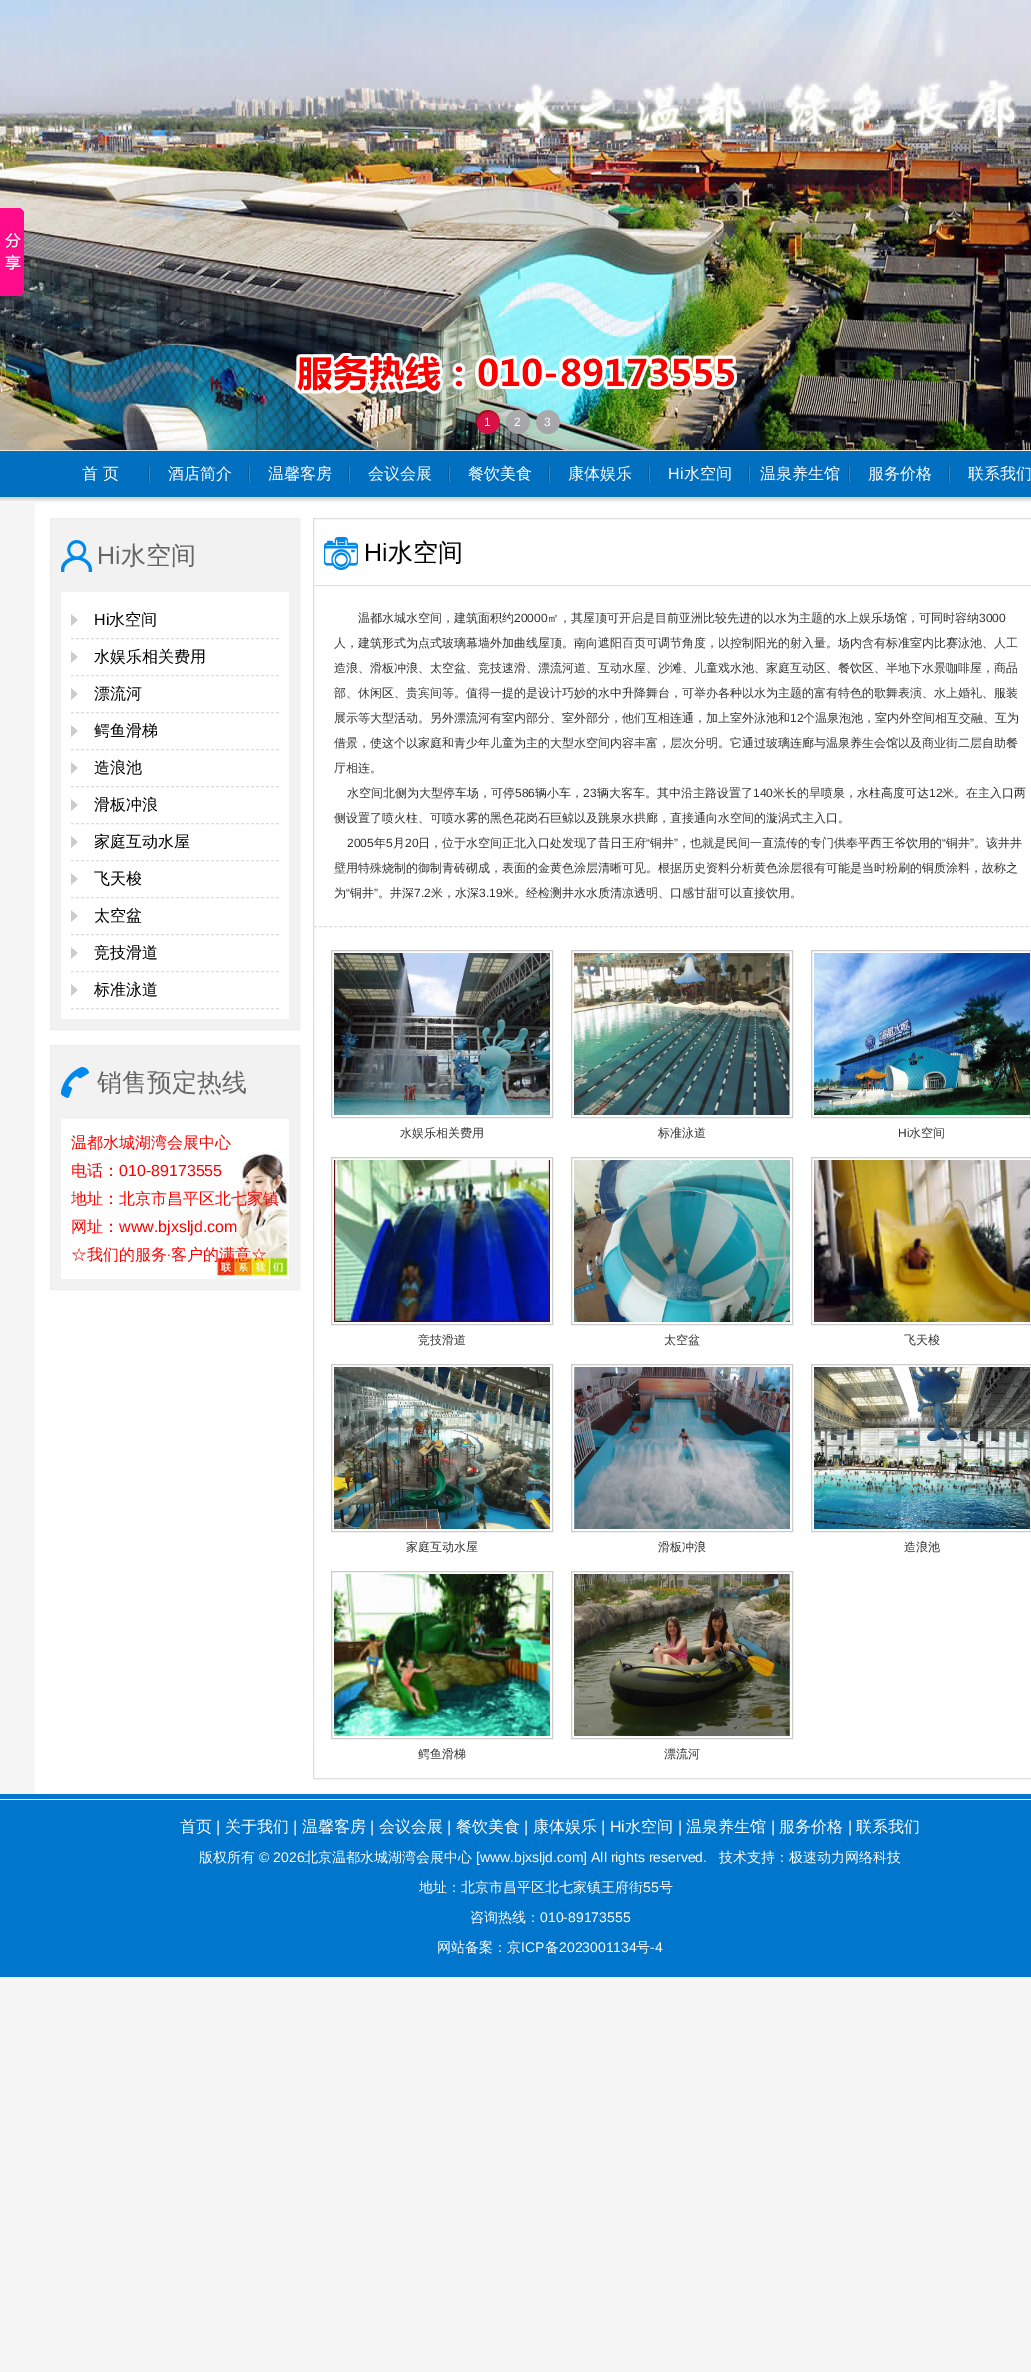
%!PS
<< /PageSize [1031 2372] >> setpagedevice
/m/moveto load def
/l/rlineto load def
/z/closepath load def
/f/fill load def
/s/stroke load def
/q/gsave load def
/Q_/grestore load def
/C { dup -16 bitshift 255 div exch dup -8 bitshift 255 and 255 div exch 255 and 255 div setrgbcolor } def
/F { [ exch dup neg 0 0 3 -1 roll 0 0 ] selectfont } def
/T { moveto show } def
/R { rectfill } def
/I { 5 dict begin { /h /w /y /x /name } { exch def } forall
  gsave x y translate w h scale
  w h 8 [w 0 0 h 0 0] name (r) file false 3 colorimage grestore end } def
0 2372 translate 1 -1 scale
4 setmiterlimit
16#F5F5F5 C
0 0 1031 2372 R
(3.rgb) 0 0 1031 450 I
(1.rgb) 0 208 24 88 I
(2.rgb) 294 353 443 41 I
16#EDE6D6 C
0 450 1031 1 R
(4.rgb) 475 410 25 24 I
/LiberationSans-Regular 12 F
16#FFFFFF C
(1) 484 426 T
(5.rgb) 506 410 24 24 I
(2) 514 426 T
(6.rgb) 536 410 24 24 I
(3) 544 426 T
16#0170C1 C
0 451 1031 43 R
16#0270BB C
0 494 1031 3 R
(7.rgb) 148 466 2 16 I
/WenQuanYiZenHei-Medium 16 F
16#FFFFFF C
(首 页) 82 479 T
(7.rgb) 248 466 2 16 I
(酒店简介) 168 479 T
(7.rgb) 348 466 2 16 I
(温馨客房) 268 479 T
(7.rgb) 448 466 2 16 I
(会议会展) 368 479 T
(7.rgb) 548 466 2 16 I
(餐饮美食) 468 479 T
(7.rgb) 648 466 2 16 I
(康体娱乐) 568 479 T
(7.rgb) 748 466 2 16 I
/LiberationSans-Regular 16 F
(Hi) 668 479 T
/WenQuanYiZenHei-Medium 16 F
(水空间) 684 479 T
(7.rgb) 848 466 2 16 I
(温泉养生馆) 760 479 T
(7.rgb) 948 466 2 16 I
(服务价格) 868 479 T
(联系我们) 968 479 T
(8.rgb) 0 497 1031 6 I
35 503 996 1291 R
16#F2F2F2 C
50.5 518.5 m 249 0 l 0 511 l -249 0 l z q f Q_
16#EDEDED C
s
(9.rgb) 61 540 31 32 I
/LiberationSans-Regular 25 F
16#666666 C
(Hi) 97 564 T
/WenQuanYiZenHei-Medium 25 F
(水空间) 121 564 T
16#FFFFFF C
61 592 228 427 R
(10.rgb) 71 614 7 12 I
16#DDDDDD C
[3 2] 0 setdash
71 638.5 m 208 0 l s
/LiberationSans-Regular 16 F
16#000000 C
(Hi) 94 625 T
/WenQuanYiZenHei-Medium 16 F
(水空间) 109 625 T
(10.rgb) 71 651 7 12 I
16#DDDDDD C
71 675.5 m 208 0 l s
16#000000 C
(水娱乐相关费用) 94 662 T
(10.rgb) 71 688 7 12 I
16#DDDDDD C
71 712.5 m 208 0 l s
16#000000 C
(漂流河) 94 699 T
(10.rgb) 71 725 7 12 I
16#DDDDDD C
71 749.5 m 208 0 l s
16#000000 C
(鳄鱼滑梯) 94 736 T
(10.rgb) 71 762 7 12 I
16#DDDDDD C
71 786.5 m 208 0 l s
16#000000 C
(造浪池) 94 773 T
(10.rgb) 71 799 7 12 I
16#DDDDDD C
71 823.5 m 208 0 l s
16#000000 C
(滑板冲浪) 94 810 T
(10.rgb) 71 836 7 12 I
16#DDDDDD C
71 860.5 m 208 0 l s
16#000000 C
(家庭互动水屋) 94 847 T
(10.rgb) 71 873 7 12 I
16#DDDDDD C
71 897.5 m 208 0 l s
16#000000 C
(飞天梭) 94 884 T
(10.rgb) 71 910 7 12 I
16#DDDDDD C
71 934.5 m 208 0 l s
16#000000 C
(太空盆) 94 921 T
(10.rgb) 71 947 7 12 I
16#DDDDDD C
71 971.5 m 208 0 l s
16#000000 C
(竞技滑道) 94 958 T
(10.rgb) 71 984 7 12 I
16#DDDDDD C
71 1008.5 m 208 0 l s
16#000000 C
(标准泳道) 94 995 T
16#F2F2F2 C
50.5 1045.5 m 249 0 l 0 244 l -249 0 l z q f Q_
16#EDEDED C
[] 0 setdash
s
(11.rgb) 61 1067 28 31 I
/WenQuanYiZenHei-Medium 25 F
16#666666 C
(销售预定热线) 97 1091 T
(12.rgb) 61 1119 228 160 I
/WenQuanYiZenHei-Medium 16 F
16#FF0000 C
(温都水城湖湾会展中心) 71 1148 T
(电话：) 71 1176 T
/LiberationSans-Regular 16 F
(010-89173555) 119 1176 T
/WenQuanYiZenHei-Medium 16 F
(地址：北京市昌平区北七家镇) 71 1204 T
(网址：) 71 1232 T
/LiberationSans-Regular 16 F
(www.bjxsljd.com) 119 1232 T
/WenQuanYiZenHei-Medium 16 F
(☆我们的服务·客户的满意☆) 71 1260 T
16#DEDEDE C
313.5 518.5 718 1260 rectstroke
16#DDDDDD C
[3 2.01] 0 setdash
314 926.5 m 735 0 l s
(13.rgb) 324 537 34 33 I
16#DEDEDE C
314 585 717 1 R
/LiberationSans-Regular 25 F
16#000000 C
(Hi) 364 561 T
/WenQuanYiZenHei-Medium 25 F
(水空间) 388 561 T
/WenQuanYiZenHei-Medium 12 F
16#333333 C
(温都水城水空间，建筑面积约) 358 622 T
/LiberationSans-Regular 12 F
(20000) 514 622 T
/WenQuanYiZenHei-Medium 12 F
(㎡，其屋顶可开启是目前亚洲比较先进的以水为主题的水上娱乐场馆，可同时容纳) 547 622 T
/LiberationSans-Regular 12 F
(3000) 979 622 T
/WenQuanYiZenHei-Medium 12 F
(人，建筑形式为点式玻璃幕墙外加曲线屋顶。南向遮阳百页可调节角度，以控制阳光的射入量。场内含有标准室内比赛泳池、人工) 334 647 T
(造浪、滑板冲浪、太空盆、竞技速滑、漂流河道、互动水屋、沙滩、儿童戏水池、家庭互动区、餐饮区、半地下水景咖啡屋，商品) 334 672 T
(部、休闲区、贵宾间等。值得一提的是设计巧妙的水中升降舞台，可举办各种以水为主题的富有特色的歌舞表演、水上婚礼、服装) 334 697 T
(展示等大型活动。另外漂流河有室内部分、室外部分，他们互相连通，加上室外泳池和) 334 722 T
/LiberationSans-Regular 12 F
(12) 790 722 T
/WenQuanYiZenHei-Medium 12 F
(个温泉泡池，室内外空间相互交融、互为) 803 722 T
(借景，使这个以家庭和青少年儿童为主的大型水空间内容丰富，层次分明。它通过玻璃连廊与温泉养生会馆以及商业街二层自助餐) 334 747 T
(厅相连。) 334 772 T
(水空间北侧为大型停车场，可停) 347 797 T
/LiberationSans-Regular 12 F
(586) 515 797 T
/WenQuanYiZenHei-Medium 12 F
(辆小车，) 535 797 T
/LiberationSans-Regular 12 F
(23) 583 797 T
/WenQuanYiZenHei-Medium 12 F
(辆大客车。其中沿主路设置了) 597 797 T
/LiberationSans-Regular 12 F
(140) 753 797 T
/WenQuanYiZenHei-Medium 12 F
(米长的旱喷泉，水柱高度可达) 773 797 T
/LiberationSans-Regular 12 F
(12) 929 797 T
/WenQuanYiZenHei-Medium 12 F
(米。在主入口两) 942 797 T
(侧设置了喷火柱、可喷水雾的黑色花岗石巨鲸以及跳泉水拱廊，直接通向水空间的漩涡式主入口。) 334 822 T
/LiberationSans-Regular 12 F
(2005) 347 847 T
/WenQuanYiZenHei-Medium 12 F
(年) 374 847 T
/LiberationSans-Regular 12 F
(5) 386 847 T
/WenQuanYiZenHei-Medium 12 F
(月) 393 847 T
/LiberationSans-Regular 12 F
(20) 405 847 T
/WenQuanYiZenHei-Medium 12 F
(日，位于水空间正北入口处发现了昔日王府) 418 847 T
/LiberationSans-Regular 12 F
(“) 646 847 T
/WenQuanYiZenHei-Medium 12 F
(铜井) 650 847 T
/LiberationSans-Regular 12 F
(”) 674 847 T
/WenQuanYiZenHei-Medium 12 F
(，也就是民间一直流传的专门供奉平西王爷饮用的) 678 847 T
/LiberationSans-Regular 12 F
(“) 942 847 T
/WenQuanYiZenHei-Medium 12 F
(铜井) 946 847 T
/LiberationSans-Regular 12 F
(”) 970 847 T
/WenQuanYiZenHei-Medium 12 F
(。该井井) 974 847 T
(壁用特殊烧制的御制青砖砌成，表面的金黄色涂层清晰可见。根据历史资料分析黄色涂层很有可能是当时粉刷的铜质涂料，故称之) 334 872 T
(为) 334 897 T
/LiberationSans-Regular 12 F
(“) 346 897 T
/WenQuanYiZenHei-Medium 12 F
(铜井) 350 897 T
/LiberationSans-Regular 12 F
(”) 374 897 T
/WenQuanYiZenHei-Medium 12 F
(。井深) 378 897 T
/LiberationSans-Regular 12 F
(7.2) 414 897 T
/WenQuanYiZenHei-Medium 12 F
(米，水深) 431 897 T
/LiberationSans-Regular 12 F
(3.19) 479 897 T
/WenQuanYiZenHei-Medium 12 F
(米。经检测井水水质清凉透明、口感甘甜可以直接饮用。) 502 897 T
16#CCCCCC C
[] 0 setdash
331.5 950.5 221 167 rectstroke
(14.rgb) 334 953 216 162 I
16#333333 C
(水娱乐相关费用) 400 1137 T
16#CCCCCC C
571.5 950.5 221 167 rectstroke
(15.rgb) 574 953 216 162 I
16#333333 C
(标准泳道) 658 1137 T
16#CCCCCC C
811.5 950.5 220 167 rectstroke
(16.rgb) 814 953 216 162 I
/LiberationSans-Regular 12 F
16#333333 C
(Hi) 898 1137 T
/WenQuanYiZenHei-Medium 12 F
(水空间) 909 1137 T
16#CCCCCC C
331.5 1157.5 221 167 rectstroke
(17.rgb) 334 1160 216 162 I
16#333333 C
(竞技滑道) 418 1344 T
16#CCCCCC C
571.5 1157.5 221 167 rectstroke
(18.rgb) 574 1160 216 162 I
16#333333 C
(太空盆) 664 1344 T
16#CCCCCC C
811.5 1157.5 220 167 rectstroke
(19.rgb) 814 1160 216 162 I
16#333333 C
(飞天梭) 904 1344 T
16#CCCCCC C
331.5 1364.5 221 167 rectstroke
(20.rgb) 334 1367 216 162 I
16#333333 C
(家庭互动水屋) 406 1551 T
16#CCCCCC C
571.5 1364.5 221 167 rectstroke
(21.rgb) 574 1367 216 162 I
16#333333 C
(滑板冲浪) 658 1551 T
16#CCCCCC C
811.5 1364.5 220 167 rectstroke
(22.rgb) 814 1367 216 162 I
16#333333 C
(造浪池) 904 1551 T
16#CCCCCC C
331.5 1571.5 221 167 rectstroke
(23.rgb) 334 1574 216 162 I
16#333333 C
(鳄鱼滑梯) 418 1758 T
16#CCCCCC C
571.5 1571.5 221 167 rectstroke
(24.rgb) 574 1574 216 162 I
16#333333 C
(漂流河) 664 1758 T
16#0076CD C
0 1794 1031 183 R
16#FFFFFF C
0 1799 1031 1 R
/WenQuanYiZenHei-Medium 16 F
(首页) 180 1832 T
/LiberationSans-Regular 16 F
(|) 216 1832 T
/WenQuanYiZenHei-Medium 16 F
(关于我们) 225 1832 T
/LiberationSans-Regular 16 F
(|) 293 1832 T
/WenQuanYiZenHei-Medium 16 F
(温馨客房) 302 1832 T
/LiberationSans-Regular 16 F
(|) 370 1832 T
/WenQuanYiZenHei-Medium 16 F
(会议会展) 379 1832 T
/LiberationSans-Regular 16 F
(|) 447 1832 T
/WenQuanYiZenHei-Medium 16 F
(餐饮美食) 456 1832 T
/LiberationSans-Regular 16 F
(|) 524 1832 T
/WenQuanYiZenHei-Medium 16 F
(康体娱乐) 533 1832 T
/LiberationSans-Regular 16 F
(| Hi) 601 1832 T
/WenQuanYiZenHei-Medium 16 F
(水空间) 625 1832 T
/LiberationSans-Regular 16 F
(|) 678 1832 T
/WenQuanYiZenHei-Medium 16 F
(温泉养生馆) 686 1832 T
/LiberationSans-Regular 16 F
(|) 771 1832 T
/WenQuanYiZenHei-Medium 16 F
(服务价格) 779 1832 T
/LiberationSans-Regular 16 F
(|) 848 1832 T
/WenQuanYiZenHei-Medium 16 F
(联系我们) 856 1832 T
/WenQuanYiZenHei-Medium 14 F
(版权所有) 199 1862 T
/LiberationSans-Regular 14 F
(© 2026) 259 1862 T
/WenQuanYiZenHei-Medium 14 F
(北京温都水城湖湾会展中心) 304 1862 T
/LiberationSans-Regular 14 F
([www.bjxsljd.com] All rights reserved.) 476 1862 T
/WenQuanYiZenHei-Medium 14 F
(技术支持：极速动力网络科技) 719 1862 T
(地址：北京市昌平区北七家镇王府街) 419 1892 T
/LiberationSans-Regular 14 F
(55) 643 1892 T
/WenQuanYiZenHei-Medium 14 F
(号) 659 1892 T
(咨询热线：) 470 1922 T
/LiberationSans-Regular 14 F
(010-89173555) 540 1922 T
/WenQuanYiZenHei-Medium 14 F
(网站备案：京) 437 1952 T
/LiberationSans-Regular 14 F
(ICP) 521 1952 T
/WenQuanYiZenHei-Medium 14 F
(备) 545 1952 T
/LiberationSans-Regular 14 F
(2023001134) 559 1952 T
/WenQuanYiZenHei-Medium 14 F
(号) 636 1952 T
/LiberationSans-Regular 14 F
(-4) 650 1952 T
showpage
